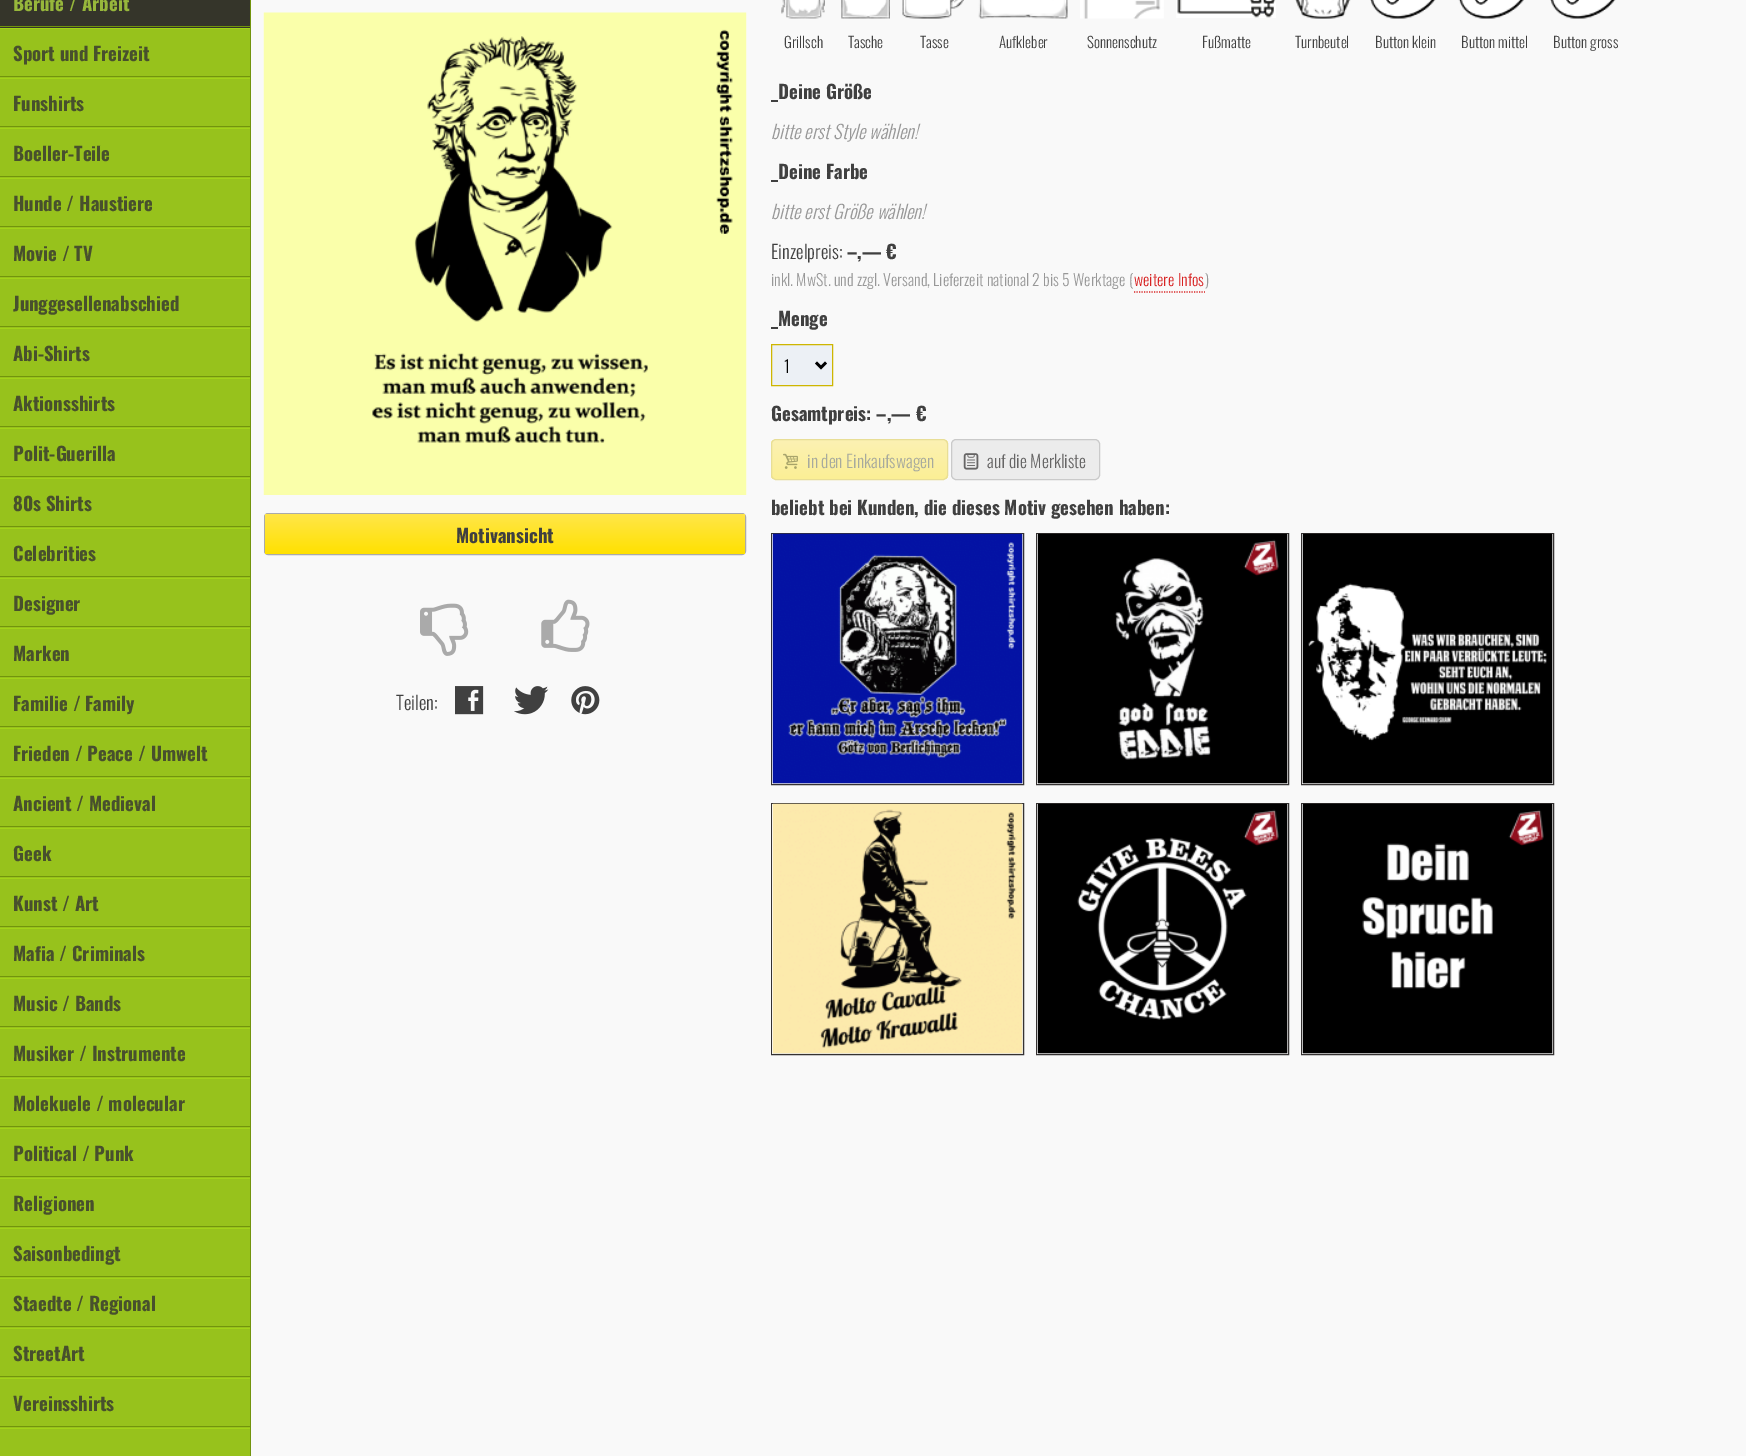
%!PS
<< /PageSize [1746 1456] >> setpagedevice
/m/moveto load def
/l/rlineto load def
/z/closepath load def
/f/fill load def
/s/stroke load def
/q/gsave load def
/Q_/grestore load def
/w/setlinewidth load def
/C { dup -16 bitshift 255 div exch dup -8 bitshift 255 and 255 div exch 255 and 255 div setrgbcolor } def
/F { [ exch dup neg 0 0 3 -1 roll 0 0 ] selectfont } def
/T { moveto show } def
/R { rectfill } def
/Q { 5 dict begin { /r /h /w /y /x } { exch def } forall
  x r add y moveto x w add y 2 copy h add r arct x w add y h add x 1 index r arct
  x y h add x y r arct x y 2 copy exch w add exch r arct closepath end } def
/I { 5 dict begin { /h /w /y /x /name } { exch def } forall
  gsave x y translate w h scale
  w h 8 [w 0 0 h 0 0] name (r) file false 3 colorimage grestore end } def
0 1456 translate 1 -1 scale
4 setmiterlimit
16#F9F9F9 C
0 0 1746 1456 R
16#97C21C C
0 29 250 1427 R
16#72940D C
250 0 1 1456 R
16#35352A C
0 0 250 28 R
16#72940D C
0 26 250 1 R
/Oswald-Bold 18.75 F
16#97B73B C
(Berufe / Arbeit) 13 11 T
16#A3D418 C
0 28 250 1 R
16#72940D C
0 76 250 1 R
16#48502D C
(Sport und Freizeit) 13 61 T
16#A3D418 C
0 78 250 1 R
16#72940D C
0 126 250 1 R
16#48502D C
(Funshirts) 13 111 T
16#A3D418 C
0 128 250 1 R
16#72940D C
0 176 250 1 R
16#48502D C
(Boeller-Teile) 13 161 T
16#A3D418 C
0 178 250 1 R
16#72940D C
0 226 250 1 R
16#48502D C
(Hunde / Haustiere) 13 211 T
16#A3D418 C
0 228 250 1 R
16#72940D C
0 276 250 1 R
16#48502D C
(Movie / TV) 13 261 T
16#A3D418 C
0 278 250 1 R
16#72940D C
0 326 250 1 R
16#48502D C
(Junggesellenabschied) 13 311 T
16#A3D418 C
0 328 250 1 R
16#72940D C
0 376 250 1 R
16#48502D C
(Abi-Shirts) 13 361 T
16#A3D418 C
0 378 250 1 R
16#72940D C
0 426 250 1 R
16#48502D C
(Aktionsshirts) 13 411 T
16#A3D418 C
0 428 250 1 R
16#72940D C
0 476 250 1 R
16#48502D C
(Polit-Guerilla) 13 461 T
16#A3D418 C
0 478 250 1 R
16#72940D C
0 526 250 1 R
16#48502D C
(80s Shirts) 13 511 T
16#A3D418 C
0 528 250 1 R
16#72940D C
0 576 250 1 R
16#48502D C
(Celebrities) 13 561 T
16#A3D418 C
0 578 250 1 R
16#72940D C
0 626 250 1 R
16#48502D C
(Designer) 13 611 T
16#A3D418 C
0 628 250 1 R
16#72940D C
0 676 250 1 R
16#48502D C
(Marken) 13 661 T
16#A3D418 C
0 678 250 1 R
16#72940D C
0 726 250 1 R
16#48502D C
(Familie / Family) 13 711 T
16#A3D418 C
0 728 250 1 R
16#72940D C
0 776 250 1 R
16#48502D C
(Frieden / Peace / Umwelt) 13 761 T
16#A3D418 C
0 778 250 1 R
16#72940D C
0 826 250 1 R
16#48502D C
(Ancient / Medieval) 13 811 T
16#A3D418 C
0 828 250 1 R
16#72940D C
0 876 250 1 R
16#48502D C
(Geek) 13 861 T
16#A3D418 C
0 878 250 1 R
16#72940D C
0 926 250 1 R
16#48502D C
(Kunst / Art) 13 911 T
16#A3D418 C
0 928 250 1 R
16#72940D C
0 976 250 1 R
16#48502D C
(Mafia / Criminals) 13 961 T
16#A3D418 C
0 978 250 1 R
16#72940D C
0 1026 250 1 R
16#48502D C
(Music / Bands) 13 1011 T
16#A3D418 C
0 1028 250 1 R
16#72940D C
0 1076 250 1 R
16#48502D C
(Musiker / Instrumente) 13 1061 T
16#A3D418 C
0 1078 250 1 R
16#72940D C
0 1126 250 1 R
16#48502D C
(Molekuele / molecular) 13 1111 T
16#A3D418 C
0 1128 250 1 R
16#72940D C
0 1176 250 1 R
16#48502D C
(Political / Punk) 13 1161 T
16#A3D418 C
0 1178 250 1 R
16#72940D C
0 1226 250 1 R
16#48502D C
(Religionen) 13 1211 T
16#A3D418 C
0 1228 250 1 R
16#72940D C
0 1276 250 1 R
16#48502D C
(Saisonbedingt) 13 1261 T
16#A3D418 C
0 1278 250 1 R
16#72940D C
0 1326 250 1 R
16#48502D C
(Staedte / Regional) 13 1311 T
16#A3D418 C
0 1328 250 1 R
16#72940D C
0 1376 250 1 R
16#48502D C
(StreetArt) 13 1361 T
16#A3D418 C
0 1378 250 1 R
16#72940D C
0 1426 250 1 R
16#48502D C
(Vereinsshirts) 13 1411 T
16#A3D418 C
0 1428 250 1 R
(1.rgb) 781 0 44 19 I
/Oswald-Light 15 F
16#404040 C
(Grillsch) 784 48 T
(2.rgb) 841 0 49 19 I
(Tasche) 848 48 T
(3.rgb) 902 0 62 19 I
(Tasse) 920 48 T
(4.rgb) 978 0 90 19 I
(Aufkleber) 999 48 T
(5.rgb) 1080 0 84 19 I
(Sonnenschutz) 1087 48 T
(6.rgb) 1176 0 100 18 I
(Fußmatte) 1202 48 T
(7.rgb) 1295 0 56 19 I
(Turnbeutel) 1295 48 T
(8.rgb) 1370 0 66 19 I
(Button klein) 1375 48 T
(9.rgb) 1458 0 66 19 I
(Button mittel) 1461 48 T
(10.rgb) 1550 0 66 19 I
(Button gross) 1553 48 T
/Oswald-Bold 18.75 F
(_Deine Größe) 771 99 T
/Oswald-LightItalic 18.75 F
16#989898 C
(bitte erst Style wählen!) 771 139 T
/Oswald-Bold 18.75 F
16#404040 C
(_Deine Farbe) 771 179 T
/Oswald-LightItalic 18.75 F
16#989898 C
(bitte erst Größe wählen!) 771 219 T
/Oswald-Light 18.75 F
16#404040 C
(Einzelpreis:) 771 259 T
/Oswald-Bold 18.75 F
(–,— €) 847 259 T
/Oswald-Light 15.9 F
16#989898 C
(inkl. MwSt. und zzgl. Versand, Lieferzeit national 2 bis 5 Werktage \() 771 286 T
16#D82323 C
(weitere Infos) 1134 286 T
16#989898 C
(\)) 1205 286 T
16#D82323 C
1.2 w
[1.25 1.25] 0 setdash
1134 292 m 71 0 l s
/Oswald-Bold 18.75 F
16#404040 C
(_Menge) 771 326 T
16#ECF0F5 C
771.5 344.5 m 61 0 l 0 41 l -61 0 l z q f Q_
16#CEB601 C
1 w
[] 0 setdash
s
16#000000 C
2.5 w
816 362.5 m 5 5 l 5 -5 l s
/Oswald-Light 17 F
(1) 784 373 T
/Oswald-Bold 18.75 F
16#404040 C
(Gesamtpreis: –,— €) 771 421 T
q
771 439 177 41 5 Q clip newpath
q 771 440 m 177 0 l 0 39 l -177 0 l z clip newpath
<< /ShadingType 2 /ColorSpace /DeviceRGB /Coords [859 440 859 479] /Extend [true true] /Function << /FunctionType 2 /Domain [0 1] /C0 [.984 .945 .702] /C1 [.984 .937 .584] /N 1 >> >> shfill Q_
Q_
16#E8DE96 C
1 w
771.5 439.5 176 40 4.5 Q s
(11.rgb) 783 453 15 16 I
/Oswald-Light 17.5 F
16#A7AA9E C
(in den Einkaufswagen) 807 468 T
16#ECECEC C
951.5 439.5 148 40 4.5 Q q f Q_
16#CACACA C
s
(12.rgb) 963 453 16 17 I
16#666565 C
(auf die Merkliste) 987 468 T
/Oswald-Bold 18.75 F
16#404040 C
(beliebt bei Kunden, die dieses Motiv gesehen haben:) 771 515 T
16#353232 C
771.5 533.5 252 251 rectstroke
16#E5E5E5 C
773 534 250 250 R
(13.rgb) 772 533 251 251 I
16#353232 C
1036.5 533.5 252 251 rectstroke
16#E5E5E5 C
1038 534 250 250 R
(14.rgb) 1037 533 251 251 I
16#353232 C
1301.5 533.5 252 251 rectstroke
16#E5E5E5 C
1303 534 250 250 R
(15.rgb) 1302 533 251 251 I
16#353232 C
771.5 803.5 252 251 rectstroke
16#E5E5E5 C
773 804 250 250 R
(16.rgb) 772 803 251 251 I
16#353232 C
1036.5 803.5 252 251 rectstroke
16#E5E5E5 C
1038 804 250 250 R
(17.rgb) 1037 803 251 251 I
16#353232 C
1301.5 803.5 252 251 rectstroke
16#E5E5E5 C
1303 804 250 250 R
(18.rgb) 1302 803 251 251 I
(19.rgb) 263 12 484 483 I
16#AAAAAA C
264.5 513.5 481 41 3.5 Q s
q 265 514 m 480 0 l 0 40 l -480 0 l z clip newpath
<< /ShadingType 2 /ColorSpace /DeviceRGB /Coords [505 514 505 554] /Extend [true true] /Function << /FunctionType 2 /Domain [0 1] /C0 [1 .902 .286] /C1 [1 .882 0] /N 1 >> >> shfill Q_
16#404040 C
(Motivansicht) 456 543 T
(20.rgb) 420 603 49 53 I
(21.rgb) 541 599 49 53 I
/Oswald-Light 18.75 F
(Teilen:) 396 710 T
(22.rgb) 455 686 29 29 I
(23.rgb) 514 686 35 29 I
(24.rgb) 571 686 29 29 I
showpage
